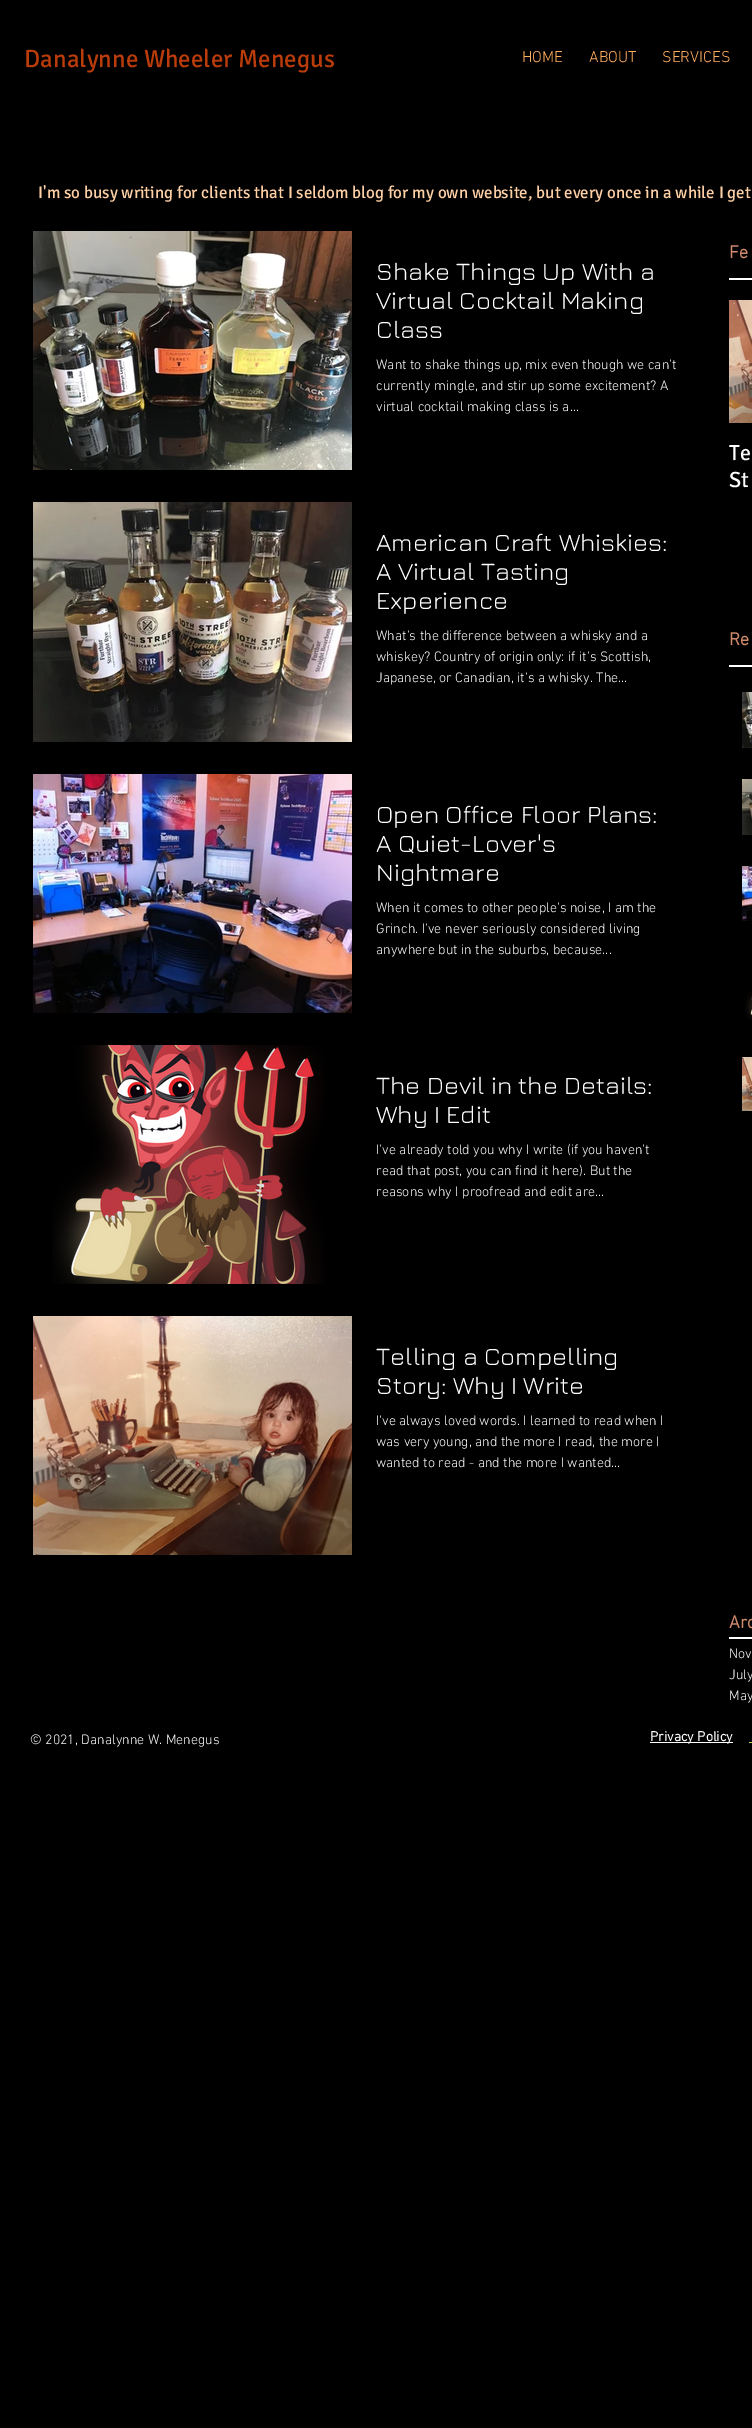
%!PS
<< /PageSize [752 2428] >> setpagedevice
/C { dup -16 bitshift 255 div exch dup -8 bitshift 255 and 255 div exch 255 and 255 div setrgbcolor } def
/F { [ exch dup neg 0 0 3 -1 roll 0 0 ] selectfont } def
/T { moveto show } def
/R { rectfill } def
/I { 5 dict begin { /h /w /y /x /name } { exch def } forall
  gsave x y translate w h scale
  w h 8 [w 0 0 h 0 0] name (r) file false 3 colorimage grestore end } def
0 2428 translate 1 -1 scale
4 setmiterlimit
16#000000 C
0 0 752 2428 R
/Signika-Regular 25 F
16#B93C0A C
(Danalynne Wheeler Menegus) 24 67 T
/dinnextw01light-Light 16 F
16#FFAD61 C
(HOME) 522 62 T
(ABOUT) 589 62 T
(SERVICES) 662 62 T
/Signika-Regular 17 F
16#FFD0A5 C
(I'm so busy writing for clients that I seldom blog for my own website, but every once in a while I get) 38 198 T
/dinnextw01light-Bold 18 F
16#D08A6E C
(Fe) 729 258 T
(1.rgb) 33 231 319 239 I
/Jura-Regular 25 F
16#FFFFFF C
(Shake Things Up With a) 376 280 T
(Virtual Cocktail Making) 376 309 T
(Class) 376 338 T
/dinnextw01light-Light 14 F
(Want to shake things up, mix even though we can’t) 376 369 T
(currently mingle, and stir up some excitement? A) 376 390 T
(virtual cocktail making class is a...) 376 411 T
(2.rgb) 33 502 319 240 I
/Jura-Regular 25 F
(American Craft Whiskies:) 376 551 T
(A Virtual Tasting) 376 580 T
(Experience) 376 609 T
/dinnextw01light-Light 14 F
(What’s the difference between a whisky and a) 376 640 T
(whiskey? Country of origin only: if it’s Scottish,) 376 661 T
(Japanese, or Canadian, it’s a whisky. The...) 376 682 T
(3.rgb) 33 774 319 239 I
/Jura-Regular 25 F
(Open Office Floor Plans:) 376 823 T
(A Quiet-Lover's) 376 852 T
(Nightmare) 376 881 T
/dinnextw01light-Light 14 F
(When it comes to other people’s noise, I am the) 376 912 T
(Grinch. I’ve never seriously considered living) 376 933 T
(anywhere but in the suburbs, because...) 376 954 T
(4.rgb) 52 1045 273 239 I
(5.rgb) 71 1045 243 239 I
/Jura-Regular 25 F
(The Devil in the Details:) 376 1094 T
(Why I Edit) 376 1123 T
/dinnextw01light-Light 14 F
(I’ve already told you why I write \(if you haven’t) 376 1154 T
(read that post, you can find it here\). But the) 376 1175 T
(reasons why I proofread and edit are...) 376 1196 T
(6.rgb) 33 1316 319 239 I
/Jura-Regular 25 F
(Telling a Compelling) 376 1365 T
(Story: Why I Write) 376 1394 T
/dinnextw01light-Light 14 F
(I've always loved words. I learned to read when I) 376 1425 T
(was very young, and the more I read, the more I) 376 1446 T
(wanted to read - and the more I wanted...) 376 1467 T
729 278 23 2 R
(7.rgb) 729 300 23 123 I
/Signika-Regular 22 F
(Te) 729 460 T
(St) 729 487 T
/dinnextw01light-Bold 18 F
16#D08A6E C
(Re) 729 645 T
16#FFFFFF C
729 665 23 2 R
(8.rgb) 742 692 10 56 I
(9.rgb) 742 779 10 56 I
(10.rgb) 742 866 10 55 I
(11.rgb) 745 991 7 29 I
(12.rgb) 750 998 2 17 I
(13.rgb) 742 1057 10 54 I
16#D08A6E C
(Arc) 729 1628 T
16#FFFFFF C
729 1637 23 2 R
/dinnextw01light-Light 14 F
(Nov) 729 1658 T
(July) 729 1679 T
(May) 729 1700 T
(© 2021, Danalynne W. Menegus) 30 1744 T
650 1742 83 1 R
/dinnextw01light-Bold 14 F
(Privacy Policy) 650 1741 T
16#BADA55 C
749 1742 3 1 R
showpage
